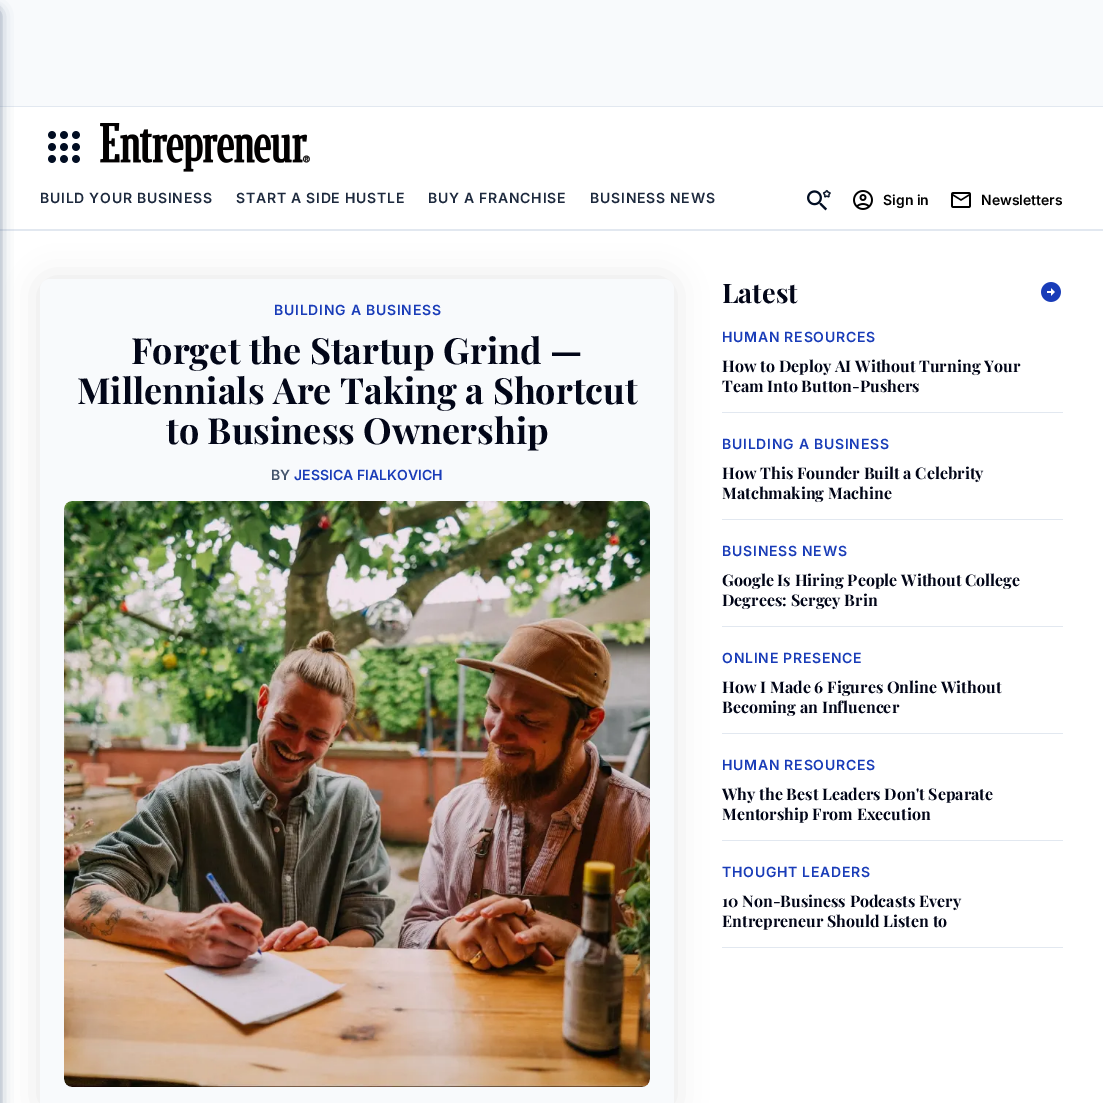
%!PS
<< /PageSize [1103 1103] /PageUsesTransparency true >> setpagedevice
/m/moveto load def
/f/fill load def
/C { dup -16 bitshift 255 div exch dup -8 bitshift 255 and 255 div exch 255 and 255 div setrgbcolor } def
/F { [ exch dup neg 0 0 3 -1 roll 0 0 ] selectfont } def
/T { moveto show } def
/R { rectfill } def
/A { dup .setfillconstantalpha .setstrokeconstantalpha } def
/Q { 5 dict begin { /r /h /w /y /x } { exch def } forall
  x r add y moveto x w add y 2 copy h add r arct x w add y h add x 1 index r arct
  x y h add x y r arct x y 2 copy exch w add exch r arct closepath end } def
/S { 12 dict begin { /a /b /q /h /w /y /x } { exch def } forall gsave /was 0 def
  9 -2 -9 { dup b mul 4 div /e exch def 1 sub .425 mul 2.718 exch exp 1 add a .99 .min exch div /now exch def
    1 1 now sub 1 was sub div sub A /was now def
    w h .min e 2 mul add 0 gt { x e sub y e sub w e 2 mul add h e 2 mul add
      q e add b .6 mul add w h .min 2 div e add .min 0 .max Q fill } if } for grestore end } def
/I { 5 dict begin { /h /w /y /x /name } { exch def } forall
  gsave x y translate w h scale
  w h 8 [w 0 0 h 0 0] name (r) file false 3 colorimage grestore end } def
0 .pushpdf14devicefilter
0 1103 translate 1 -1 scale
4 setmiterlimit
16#FFFFFF C
0 0 1103 1103 R
16#F8FAFC C
0 0 1103 106 R
16#E2E8F0 C
0 106 1103 1 R
722 412 341 1 R
722 519 341 1 R
722 626 341 1 R
722 733 341 1 R
722 840 341 1 R
722 947 341 1 R
16#000000 C
40 279 634 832 10 16 .1 S
16#E2E8F0 C
0 229 1103 2 R
16#62748E C
-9 8 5 1095 0 3 1 S
-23 13 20 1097 0 7.5 1 S
(1.rgb) 48 131 32 32 I
(2.rgb) 100 123 210 49 I
/Inter-SemiBold 14 F
16#1D293D C
40 203 m .75 0 (BUILD YOUR BUSINESS) ashow
236 203 m .75 0 (START A SIDE HUSTLE) ashow
428 203 m .75 0 (BUY A FRANCHISE) ashow
590 203 m .75 0 (BUSINESS NEWS) ashow
(3.rgb) 807 189 24 22 I
(4.rgb) 853 190 20 20 I
16#000000 C
(Sign in) 883 205 T
(5.rgb) 951 192 20 16 I
(Newsletters) 981 205 T
16#F8FAFC C
40 279 634 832 10 Q f
16#193CB8 C
274 315 m .75 0 (BUILDING A BUSINESS) ashow
/PlayfairDisplay-Bold 36 F
16#020618 C
(Forget the Startup Grind —) 131 364 T
(Millennials Are Taking a Shortcut) 77 404 T
(to Business Ownership) 166 444 T
/Inter-SemiBold 14 F
16#45556C C
(BY) 271 480 T
16#193CB8 C
(JESSICA FIALKOVICH) 294 480 T
(6.rgb) 64 501 586 586 I
/PlayfairDisplay-Bold 27 F
16#020618 C
(Latest) 722 303 T
(7.rgb) 1041 282 20 20 I
/Inter-SemiBold 14 F
16#193CB8 C
722 342 m .75 0 (HUMAN RESOURCES) ashow
/PlayfairDisplay-Bold 16 F
16#020618 C
(How to Deploy AI Without Turning Your) 722 372 T
(Team Into Button-Pushers) 722 392 T
/Inter-SemiBold 14 F
16#193CB8 C
722 449 m .75 0 (BUILDING A BUSINESS) ashow
/PlayfairDisplay-Bold 16 F
16#020618 C
(How This Founder Built a Celebrity) 722 479 T
(Matchmaking Machine) 722 499 T
/Inter-SemiBold 14 F
16#193CB8 C
722 556 m .75 0 (BUSINESS NEWS) ashow
/PlayfairDisplay-Bold 16 F
16#020618 C
(Google Is Hiring People Without College) 722 586 T
(Degrees: Sergey Brin) 722 606 T
/Inter-SemiBold 14 F
16#193CB8 C
722 663 m .75 0 (ONLINE PRESENCE) ashow
/PlayfairDisplay-Bold 16 F
16#020618 C
(How I Made 6 Figures Online Without) 722 693 T
(Becoming an Influencer) 722 713 T
/Inter-SemiBold 14 F
16#193CB8 C
722 770 m .75 0 (HUMAN RESOURCES) ashow
/PlayfairDisplay-Bold 16 F
16#020618 C
(Why the Best Leaders Don't Separate) 722 800 T
(Mentorship From Execution) 722 820 T
/Inter-SemiBold 14 F
16#193CB8 C
722 877 m .75 0 (THOUGHT LEADERS) ashow
/PlayfairDisplay-Bold 16 F
16#020618 C
(10 Non-Business Podcasts Every) 722 907 T
(Entrepreneur Should Listen to) 722 927 T
.poppdf14devicefilter showpage
